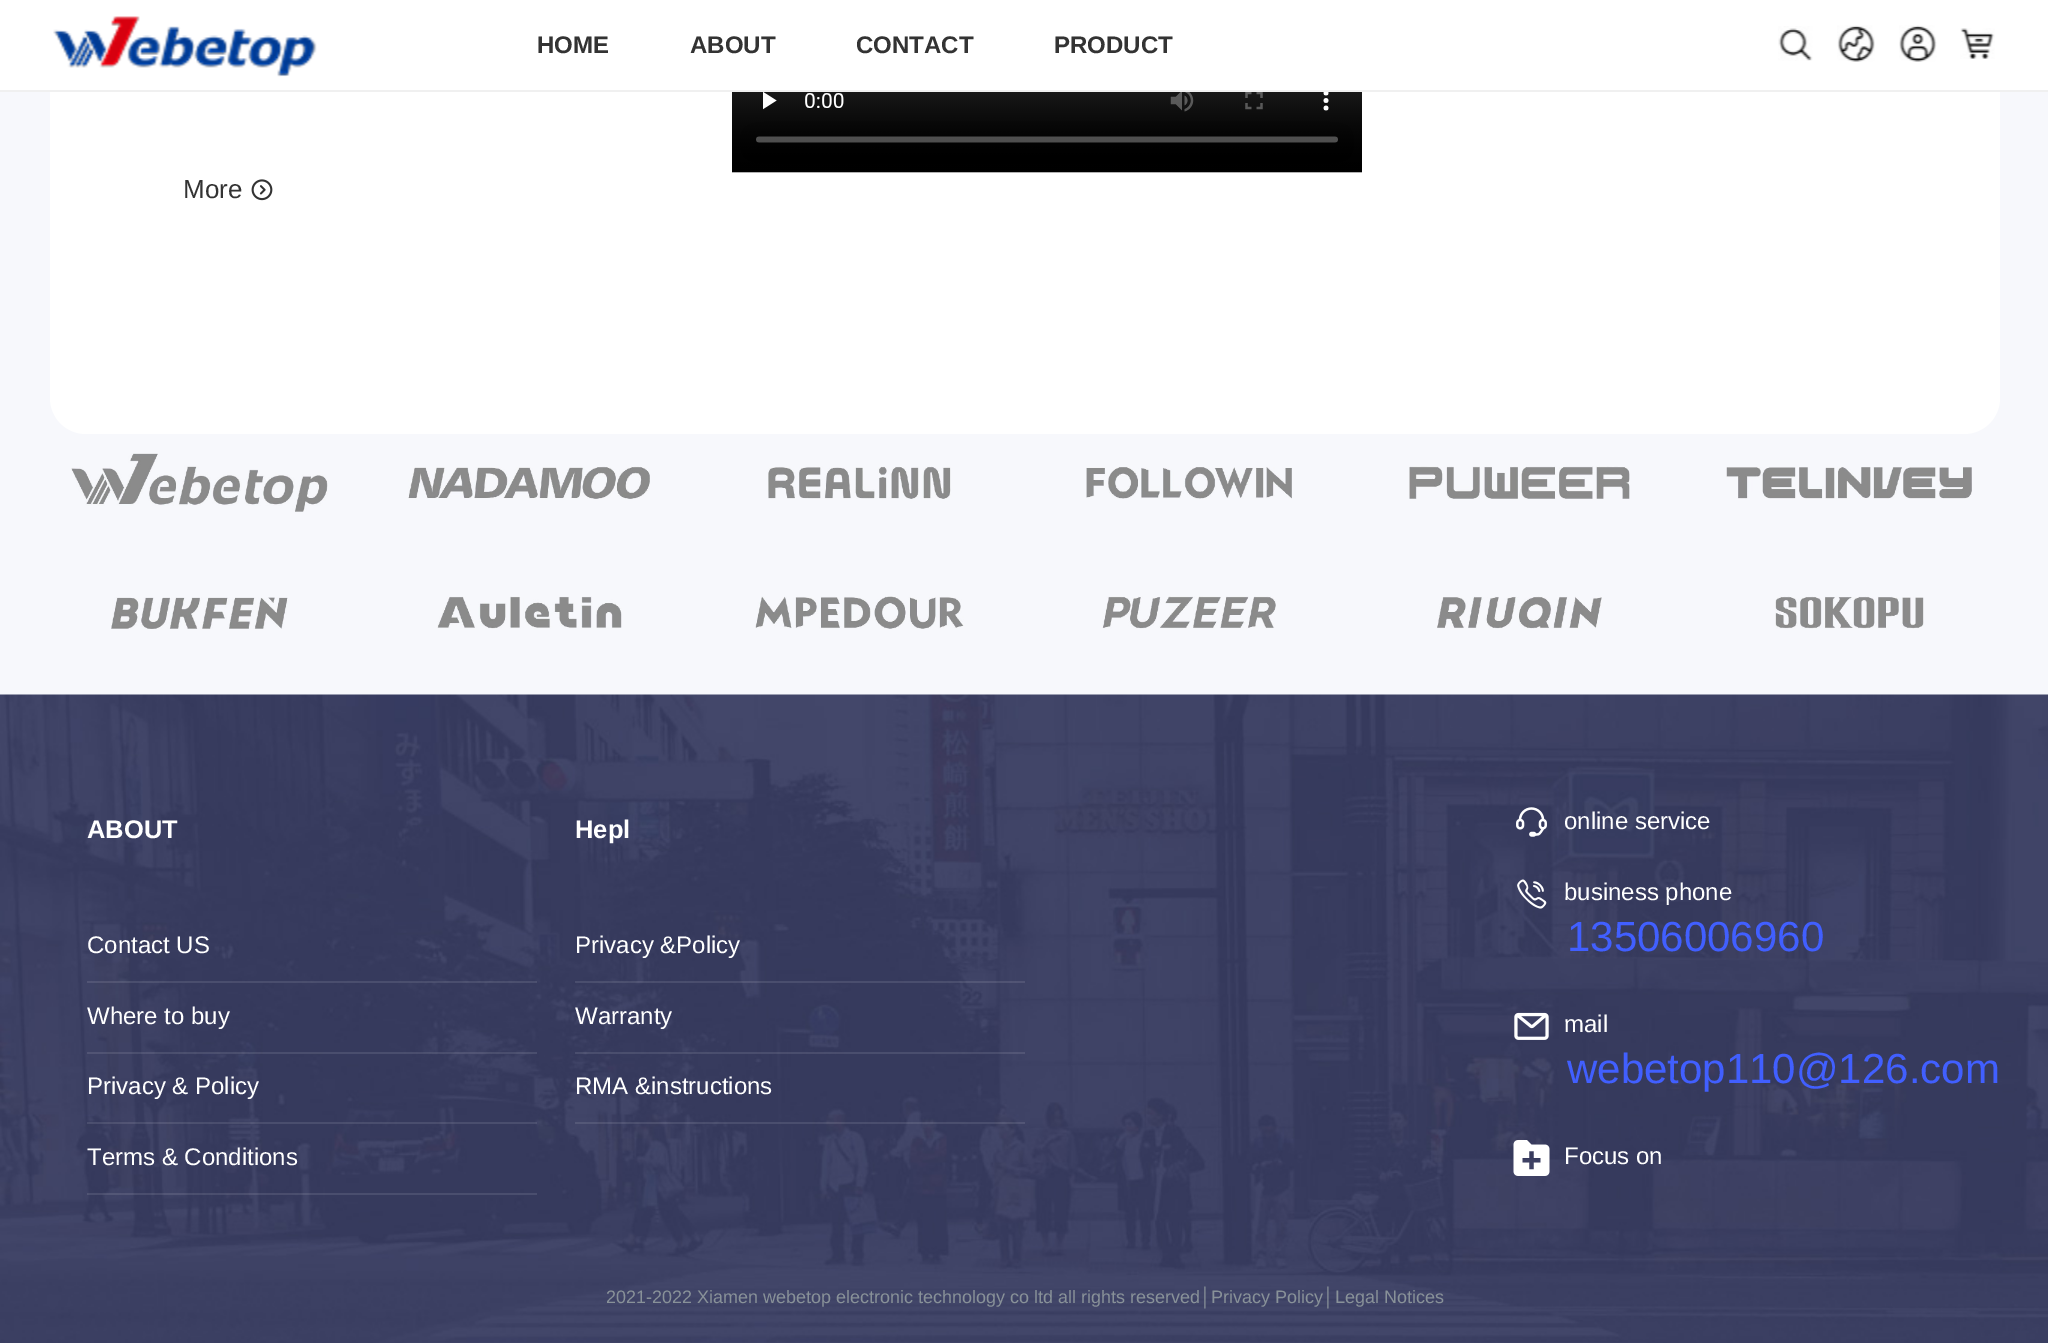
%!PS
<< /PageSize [2048 1343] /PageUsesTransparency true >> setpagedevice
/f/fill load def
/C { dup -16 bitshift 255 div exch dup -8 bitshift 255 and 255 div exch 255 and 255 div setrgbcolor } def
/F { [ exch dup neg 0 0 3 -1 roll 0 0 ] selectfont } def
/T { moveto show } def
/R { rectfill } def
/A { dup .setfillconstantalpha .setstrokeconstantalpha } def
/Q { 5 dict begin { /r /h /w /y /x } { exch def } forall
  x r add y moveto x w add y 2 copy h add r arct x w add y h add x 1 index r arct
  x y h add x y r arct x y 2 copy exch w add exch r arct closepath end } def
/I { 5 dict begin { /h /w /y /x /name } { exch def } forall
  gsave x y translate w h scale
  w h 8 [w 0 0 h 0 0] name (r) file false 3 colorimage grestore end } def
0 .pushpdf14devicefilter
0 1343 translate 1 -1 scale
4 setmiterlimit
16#F7F8FC C
0 0 2048 1343 R
16#FFFFFF C
50 -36 1950 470 36 Q f
0 0 2048 90 R
16#F0F0F0 C
0 90 2048 2 R
(1.rgb) 53 16 264 61 I
/LiberationSans-Bold 24 F
16#333333 C
(HOME) 537 53 T
(ABOUT) 690 53 T
(CONTACT) 856 53 T
(PRODUCT) 1054 53 T
(2.rgb) 1778 26 35 35 I
(3.rgb) 1837 25 38 37 I
(4.rgb) 1899 25 38 37 I
(5.rgb) 1960 28 35 31 I
(6.rgb) 732 92 630 81 I
/LiberationSans-Regular 26 F
(More) 183 198 T
(7.rgb) 251 179 22 22 I
(8.rgb) 71 453 257 59 I
(9.rgb) 408 466 242 33 I
(10.rgb) 768 466 183 33 I
(11.rgb) 1086 467 206 32 I
(12.rgb) 1409 466 221 33 I
(13.rgb) 1726 467 246 32 I
(14.rgb) 111 597 177 32 I
(15.rgb) 437 596 185 33 I
(16.rgb) 755 596 209 33 I
(17.rgb) 1102 596 174 33 I
(18.rgb) 1437 596 165 33 I
(19.rgb) 1775 596 149 33 I
(20.rgb) 0 694 2048 649 I
/LiberationSans-Bold 25.5 F
16#FFFFFF C
(ABOUT) 87 838 T
0.1 A
87 981 450 2 R
/LiberationSans-Regular 24 F
1 A
(Contact US) 87 953 T
0.1 A
87 1052 450 2 R
1 A
(Where to buy) 87 1024 T
0.1 A
87 1122 450 2 R
1 A
(Privacy & Policy) 87 1094 T
0.1 A
87 1193 450 2 R
1 A
(Terms & Conditions) 87 1165 T
/LiberationSans-Bold 25.5 F
(Hepl) 575 838 T
0.1 A
575 981 450 2 R
/LiberationSans-Regular 24 F
1 A
(Privacy &Policy) 575 953 T
0.1 A
575 1052 450 2 R
1 A
(Warranty) 575 1024 T
0.1 A
575 1122 450 2 R
1 A
(RMA &instructions) 575 1094 T
(21.rgb) 1516 807 31 30 I
(online service) 1564 829 T
(22.rgb) 1517 879 30 30 I
(business phone) 1564 900 T
/LiberationSans-Regular 42 F
16#415FFF C
(13506006960) 1567 951 T
(23.rgb) 1514 1012 35 28 I
/LiberationSans-Regular 24 F
16#FFFFFF C
(mail) 1564 1032 T
/LiberationSans-Regular 42 F
16#415FFF C
(webetop110@126.com) 1567 1083 T
(24.rgb) 1513 1140 37 36 I
/LiberationSans-Regular 24 F
16#FFFFFF C
(Focus on) 1564 1164 T
/LiberationSans-Regular 18 F
16#889198 C
(2021-2022 Xiamen webetop electronic technology co ltd all rights reserved│Privacy Policy│Legal Notices) 606 1303 T
.poppdf14devicefilter showpage
